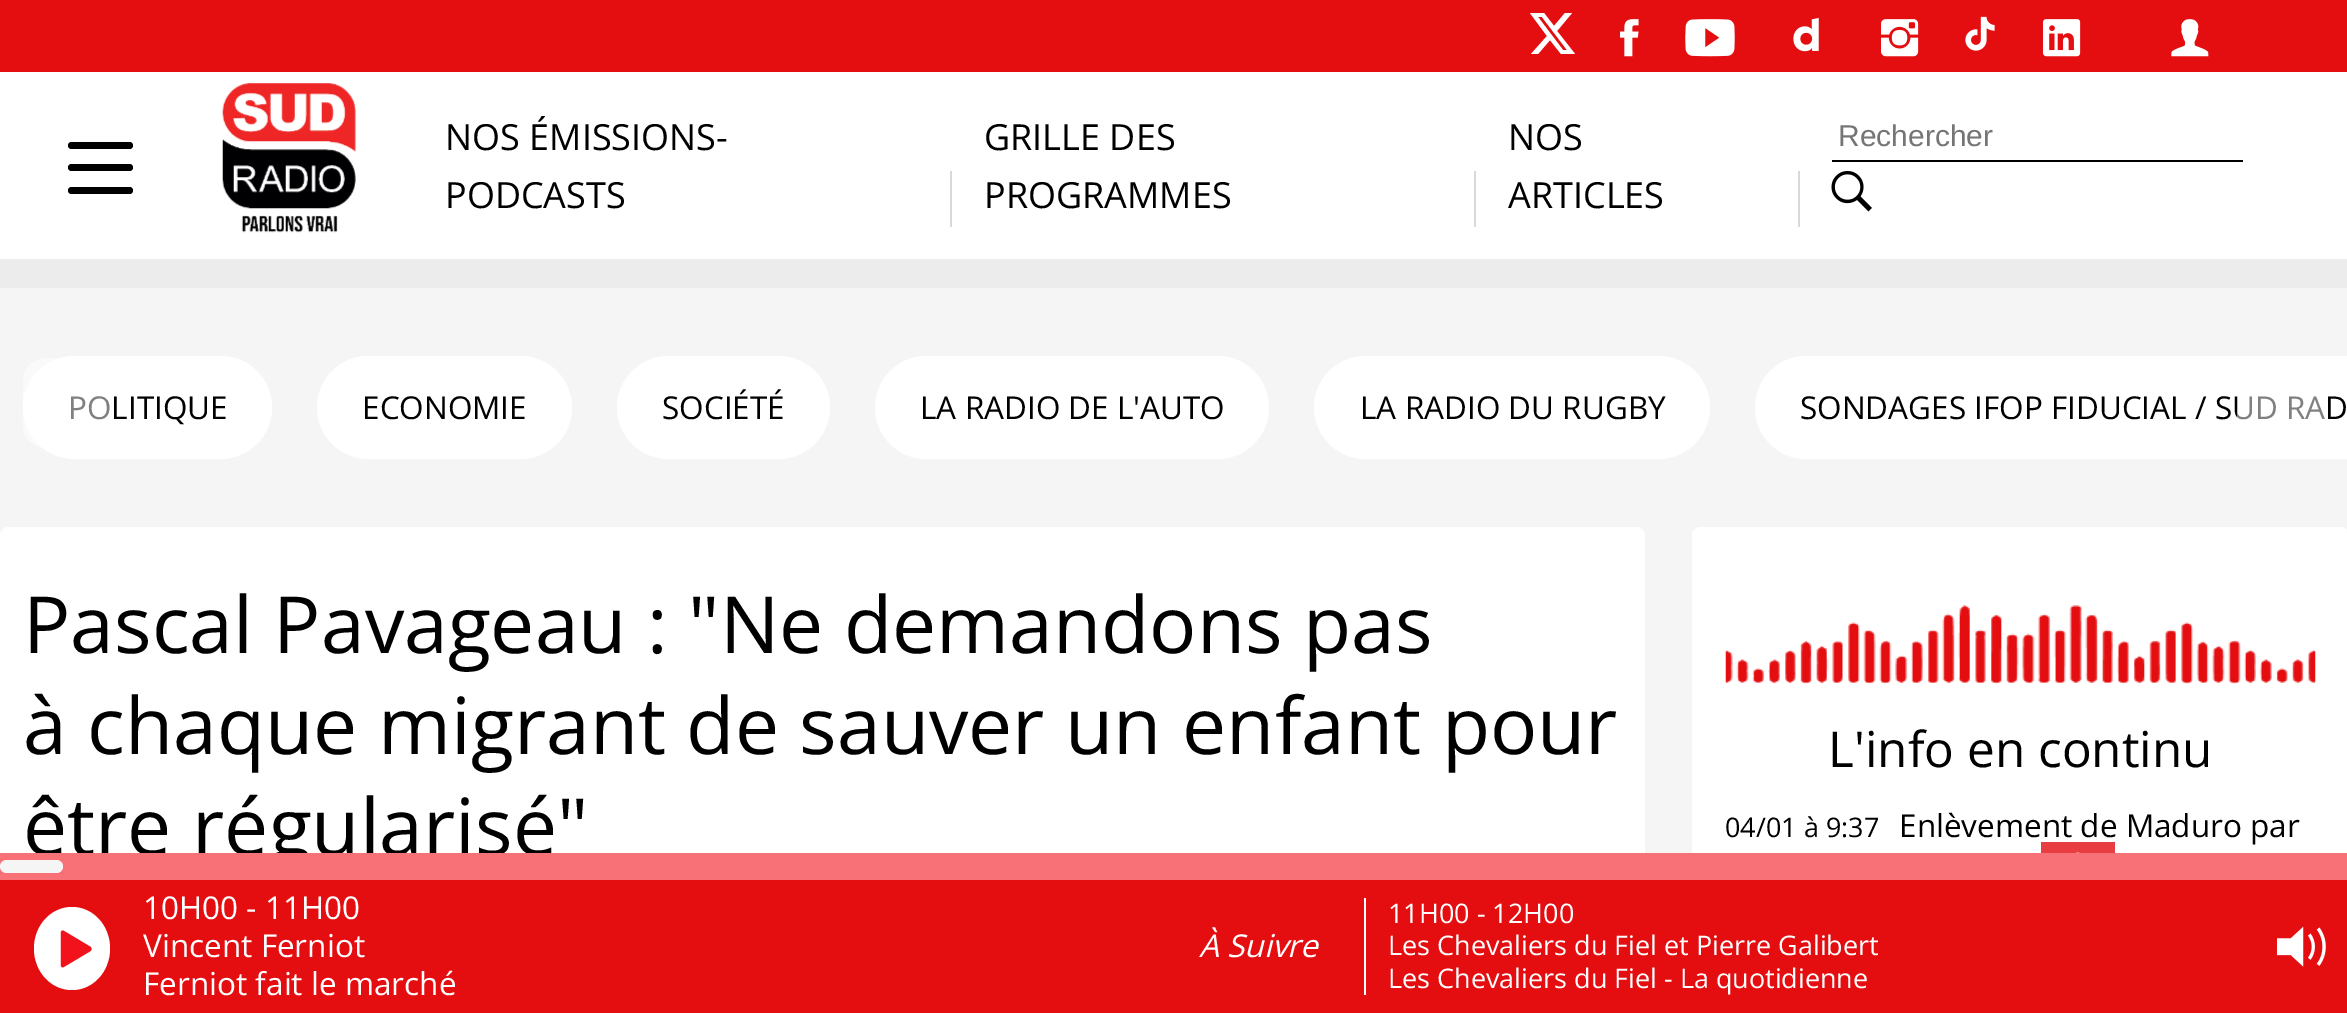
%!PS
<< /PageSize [2347 1013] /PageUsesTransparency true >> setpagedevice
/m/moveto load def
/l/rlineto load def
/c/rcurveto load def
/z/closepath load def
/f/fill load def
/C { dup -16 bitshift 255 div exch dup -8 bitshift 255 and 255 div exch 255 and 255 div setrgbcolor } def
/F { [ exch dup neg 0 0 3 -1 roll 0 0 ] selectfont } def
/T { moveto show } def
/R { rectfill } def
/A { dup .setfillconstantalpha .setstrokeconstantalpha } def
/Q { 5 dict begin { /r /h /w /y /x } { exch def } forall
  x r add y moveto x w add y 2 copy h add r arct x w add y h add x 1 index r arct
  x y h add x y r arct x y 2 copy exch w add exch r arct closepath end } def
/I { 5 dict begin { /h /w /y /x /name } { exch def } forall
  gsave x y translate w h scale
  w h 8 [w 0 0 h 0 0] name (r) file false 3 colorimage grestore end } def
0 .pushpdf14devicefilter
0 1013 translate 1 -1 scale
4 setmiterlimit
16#ECECEC C
0 0 2347 1013 R
16#E40E11 C
0 0 2347 72 R
16#FFFFFF C
1565 13 m 7 0 l -15 18 l 18 23 l -14 0 l -11 -14 l -12 14 l -7 0 l 16 -18 l -17 -23 l 14 0 l 10 13 l z 1563 50 m 4 0 l -25 -33 l -4 0 l z f
(1.rgb) 1620 19 19 38 I
(2.rgb) 1685 19 50 38 I
(3.rgb) 1793 17 26 35 I
(4.rgb) 1881 19 38 38 I
(5.rgb) 1965 16 30 35 I
(6.rgb) 2043 19 38 38 I
(7.rgb) 2171 19 38 38 I
0 72 2347 187 R
(8.rgb) 222 83 134 150 I
/OpenSans-Regular 36 F
16#000000 C
(NOS ÉMISSIONS-) 445 150 T
(PODCASTS) 445 208 T
16#D9D9D9 C
950 171 2 56 R
16#000000 C
(GRILLE DES) 984 150 T
(PROGRAMMES) 984 208 T
16#D9D9D9 C
1474 171 2 56 R
16#000000 C
(NOS) 1508 150 T
(ARTICLES) 1508 208 T
16#D9D9D9 C
1798 171 2 56 R
16#000000 C
1832 160 411 2 R
/LiberationSans-Regular 30 F
16#757575 C
(Rechercher) 1838 146 T
(9.rgb) 1831 171 41 41 I
16#000000 C
68 142 65 7 3.5 Q f
68 164 65 7 3.5 Q f
68 187 65 7 3.5 Q f
16#F5F5F5 C
0 288 2347 565 R
16#FFFFFF C
23 356 249 103 51.5 Q f
/OpenSans-Regular 31.5 F
16#000000 C
(POLITIQUE) 68 419 T
0.5 A
16#FFFFFF C
23 358 90 90 23 Q f
1 A
1806.5 356 m 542.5 0 l 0 103 l -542.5 0 l -28.5 0 -51.5 -23 -51.5 -51.5 c 0 -28.5 23 -51.5 51.5 -51.5 c z f
16#000000 C
(SONDAGES IFOP FIDUCIAL / SUD RAD) 1800 419 T
0.5 A
16#FFFFFF C
2237 358 90 90 23 Q f
1 A
317 356 255 103 51.5 Q f
16#000000 C
(ECONOMIE) 362 419 T
16#FFFFFF C
617 356 213 103 51.5 Q f
16#000000 C
(SOCIÉTÉ) 662 419 T
16#FFFFFF C
875 356 394 103 51.5 Q f
16#000000 C
(LA RADIO DE L'AUTO) 920 419 T
16#FFFFFF C
1314 356 396 103 51.5 Q f
16#000000 C
(LA RADIO DU RUGBY) 1360 419 T
16#FFFFFF C
0 527 1645 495 9 Q f
/OpenSans-Regular 78.75 F
16#000000 C
(Pascal Pavageau : "Ne demandons pas) 23 653 T
(à chaque migrant de sauver un enfant pour) 23 754 T
(être régularisé") 23 855 T
16#FFFFFF C
1692 527 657 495 9 Q f
(10.rgb) 1725 605 591 79 I
/OpenSans-Regular 49.5 F
16#000000 C
(L'info en continu) 1828 767 T
/OpenSans-Regular 27 F
(04/01 à 9:37) 1725 837 T
/OpenSans-Regular 31.5 F
(Enlèvement de Maduro par) 1899 837 T
0.8 A
16#E40E11 C
2041 842 74 11 R
1 A
(11.rgb) 2076 852 4 1 I
0 880 2347 133 R
16#F77177 C
0 853 2347 27 R
16#F5F5F5 C
0 860 63 13 6.5 Q f
16#FFFFFF C
72 907 m 21 0 38 18.5 38 41.5 c 0 23 -17 41.5 -38 41.5 c -21 0 -38 -18.5 -38 -41.5 c 0 -23 17 -41.5 38 -41.5 c z f
(12.rgb) 60 930 32 38 I
(10H00 - 11H00) 143 919 T
(Vincent Ferniot) 143 957 T
(Ferniot fait le marché) 143 995 T
/OpenSans-Italic 31.5 F
(À Suivre) 1199 957 T
1364 898 2 97 R
/OpenSans-Regular 27 F
(11H00 - 12H00) 1388 923 T
(Les Chevaliers du Fiel et Pierre Galibert) 1388 955 T
(Les Chevaliers du Fiel - La quotidienne) 1388 988 T
(13.rgb) 2277 926 49 41 I
.poppdf14devicefilter showpage
